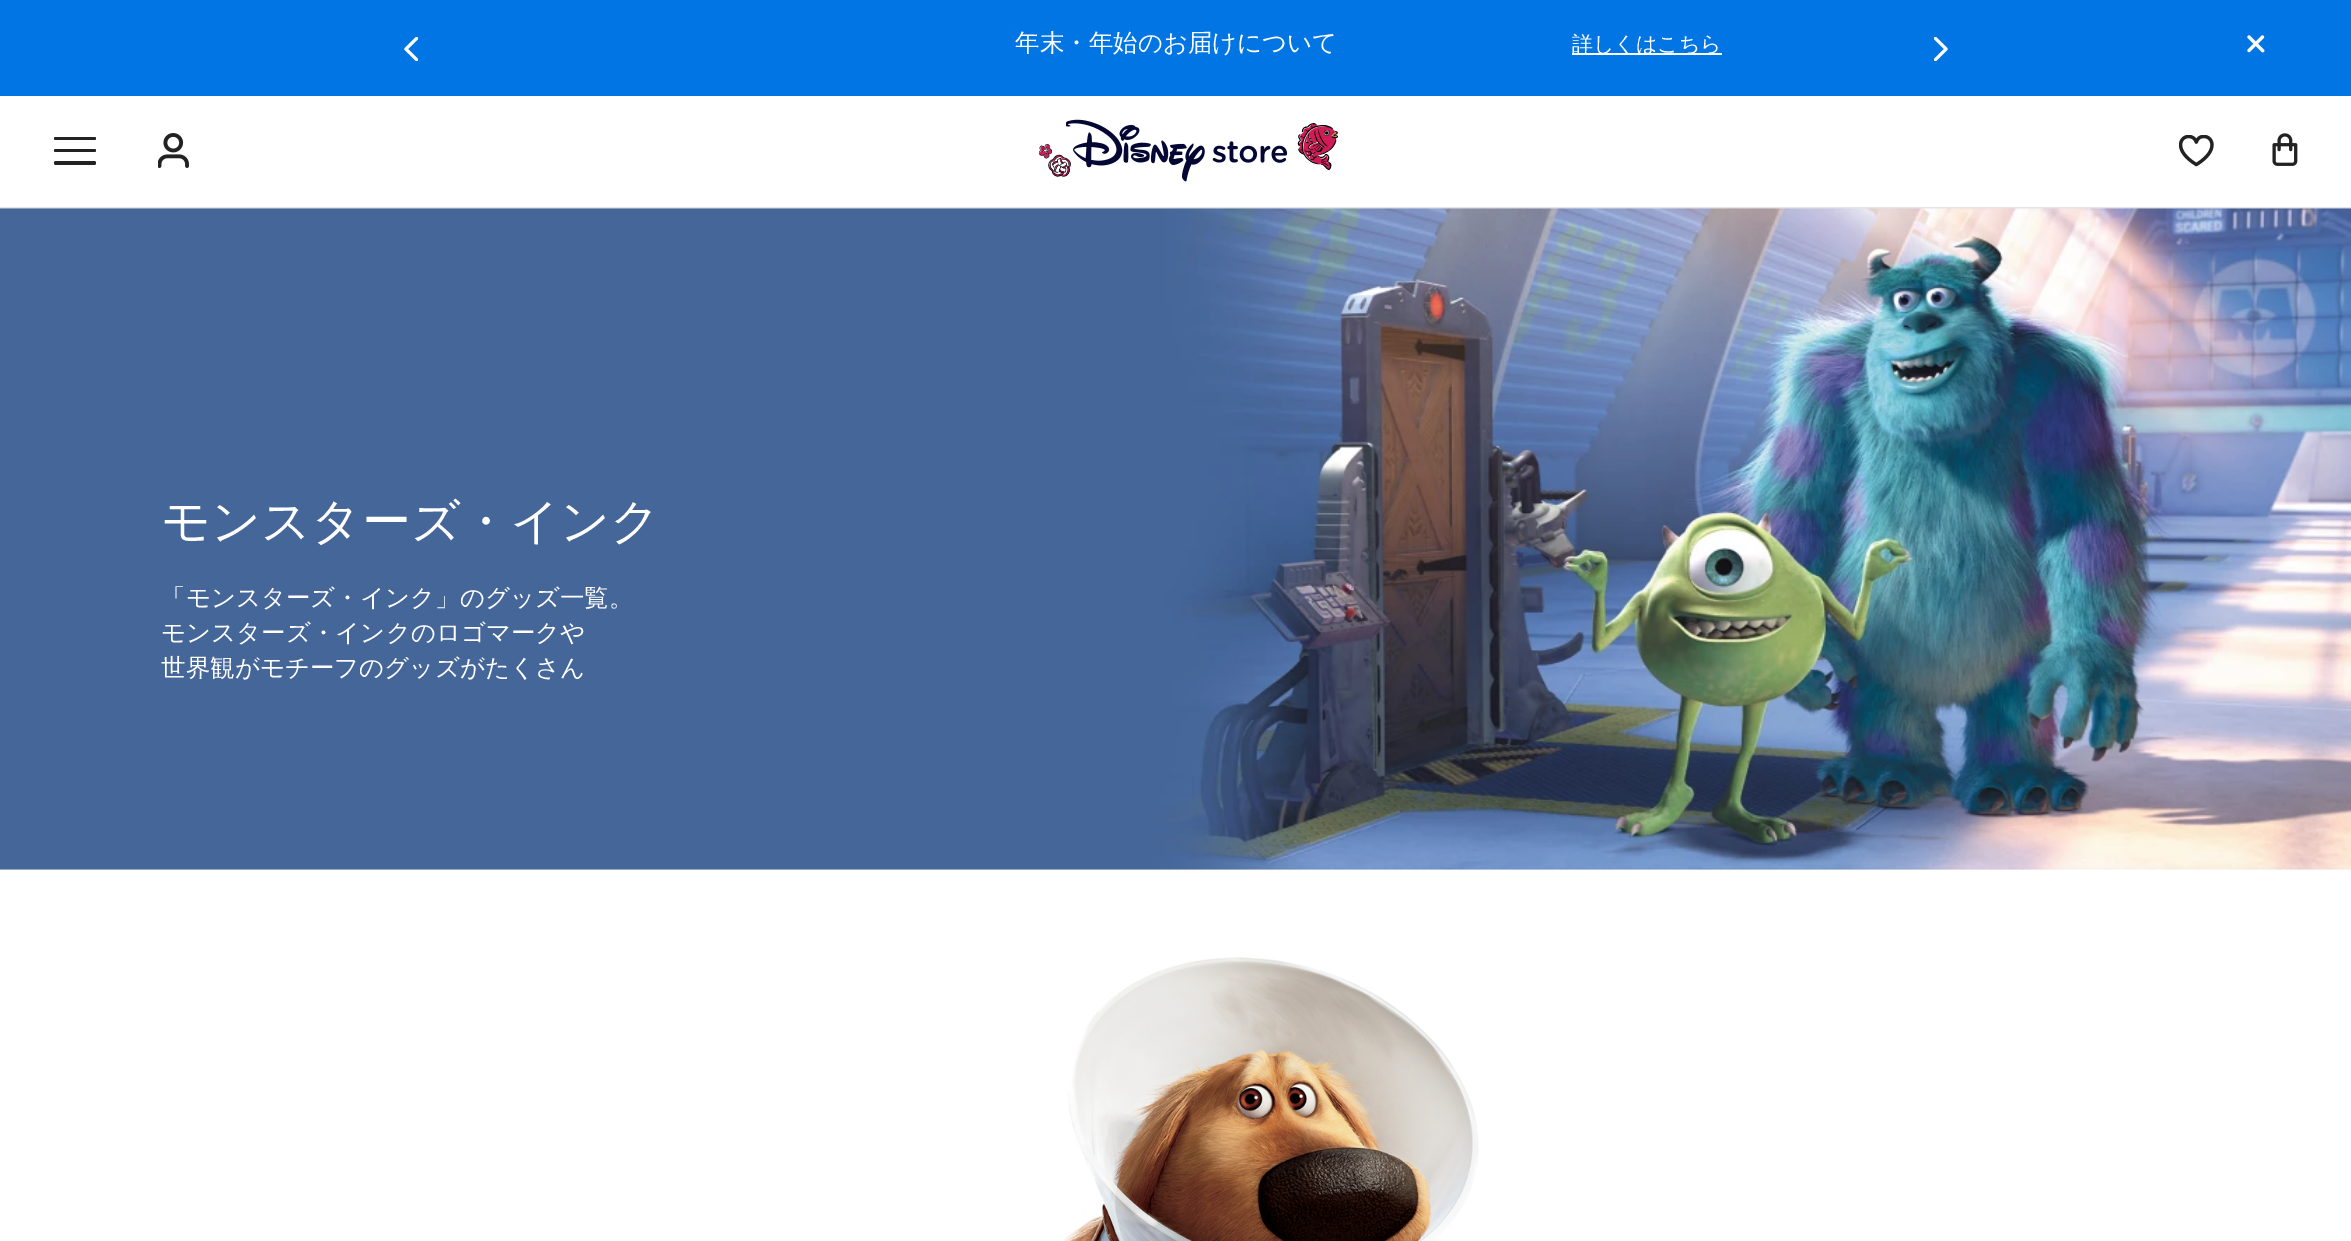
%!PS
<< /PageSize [2351 1241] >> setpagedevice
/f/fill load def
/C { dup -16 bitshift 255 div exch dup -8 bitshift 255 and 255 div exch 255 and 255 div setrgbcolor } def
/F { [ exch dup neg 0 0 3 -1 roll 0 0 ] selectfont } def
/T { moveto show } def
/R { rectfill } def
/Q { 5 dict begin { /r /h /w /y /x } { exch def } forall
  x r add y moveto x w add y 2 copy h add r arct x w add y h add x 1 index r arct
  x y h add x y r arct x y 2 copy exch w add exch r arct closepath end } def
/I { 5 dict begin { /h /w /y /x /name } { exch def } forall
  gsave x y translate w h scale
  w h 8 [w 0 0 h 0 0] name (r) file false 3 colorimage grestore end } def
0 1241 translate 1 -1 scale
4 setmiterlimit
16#FFFFFF C
0 0 2351 1241 R
16#0075E3 C
0 0 2351 96 R
(1.rgb) 404 37 14 24 I
/WenQuanYiZenHei-Medium 24.5 F
16#FFFFFF C
(年末・年始のお届けについて) 1015 51 T
1572 53 150 2 R
/WenQuanYiZenHei-Medium 21 F
(詳しくはこちら) 1572 51 T
(2.rgb) 1934 37 14 24 I
(3.rgb) 2247 35 18 18 I
16#E6E6E6 C
0 207 2351 2 R
(4.rgb) 1066 119 222 63 I
(5.rgb) 1039 123 299 54 I
16#222222 C
54 137 42 3 1.5 Q f
54 149 42 3 1.5 Q f
54 161 42 4 2 Q f
(6.rgb) 158 133 31 35 I
(7.rgb) 2179 135 35 32 I
(8.rgb) 2272 133 26 33 I
(9.rgb) 0 208 2351 662 I
/WenQuanYiZenHei-Medium 49 F
16#FFFFFF C
(モンスターズ・インク) 161 538 T
/WenQuanYiZenHei-Medium 24.5 F
(「モンスターズ・インク」のグッズ一覧。) 161 606 T
(モンスターズ・インクのロゴマークや) 161 641 T
(世界観がモチーフのグッズがたくさん) 161 676 T
(10.rgb) 1062 957 417 284 I
showpage
